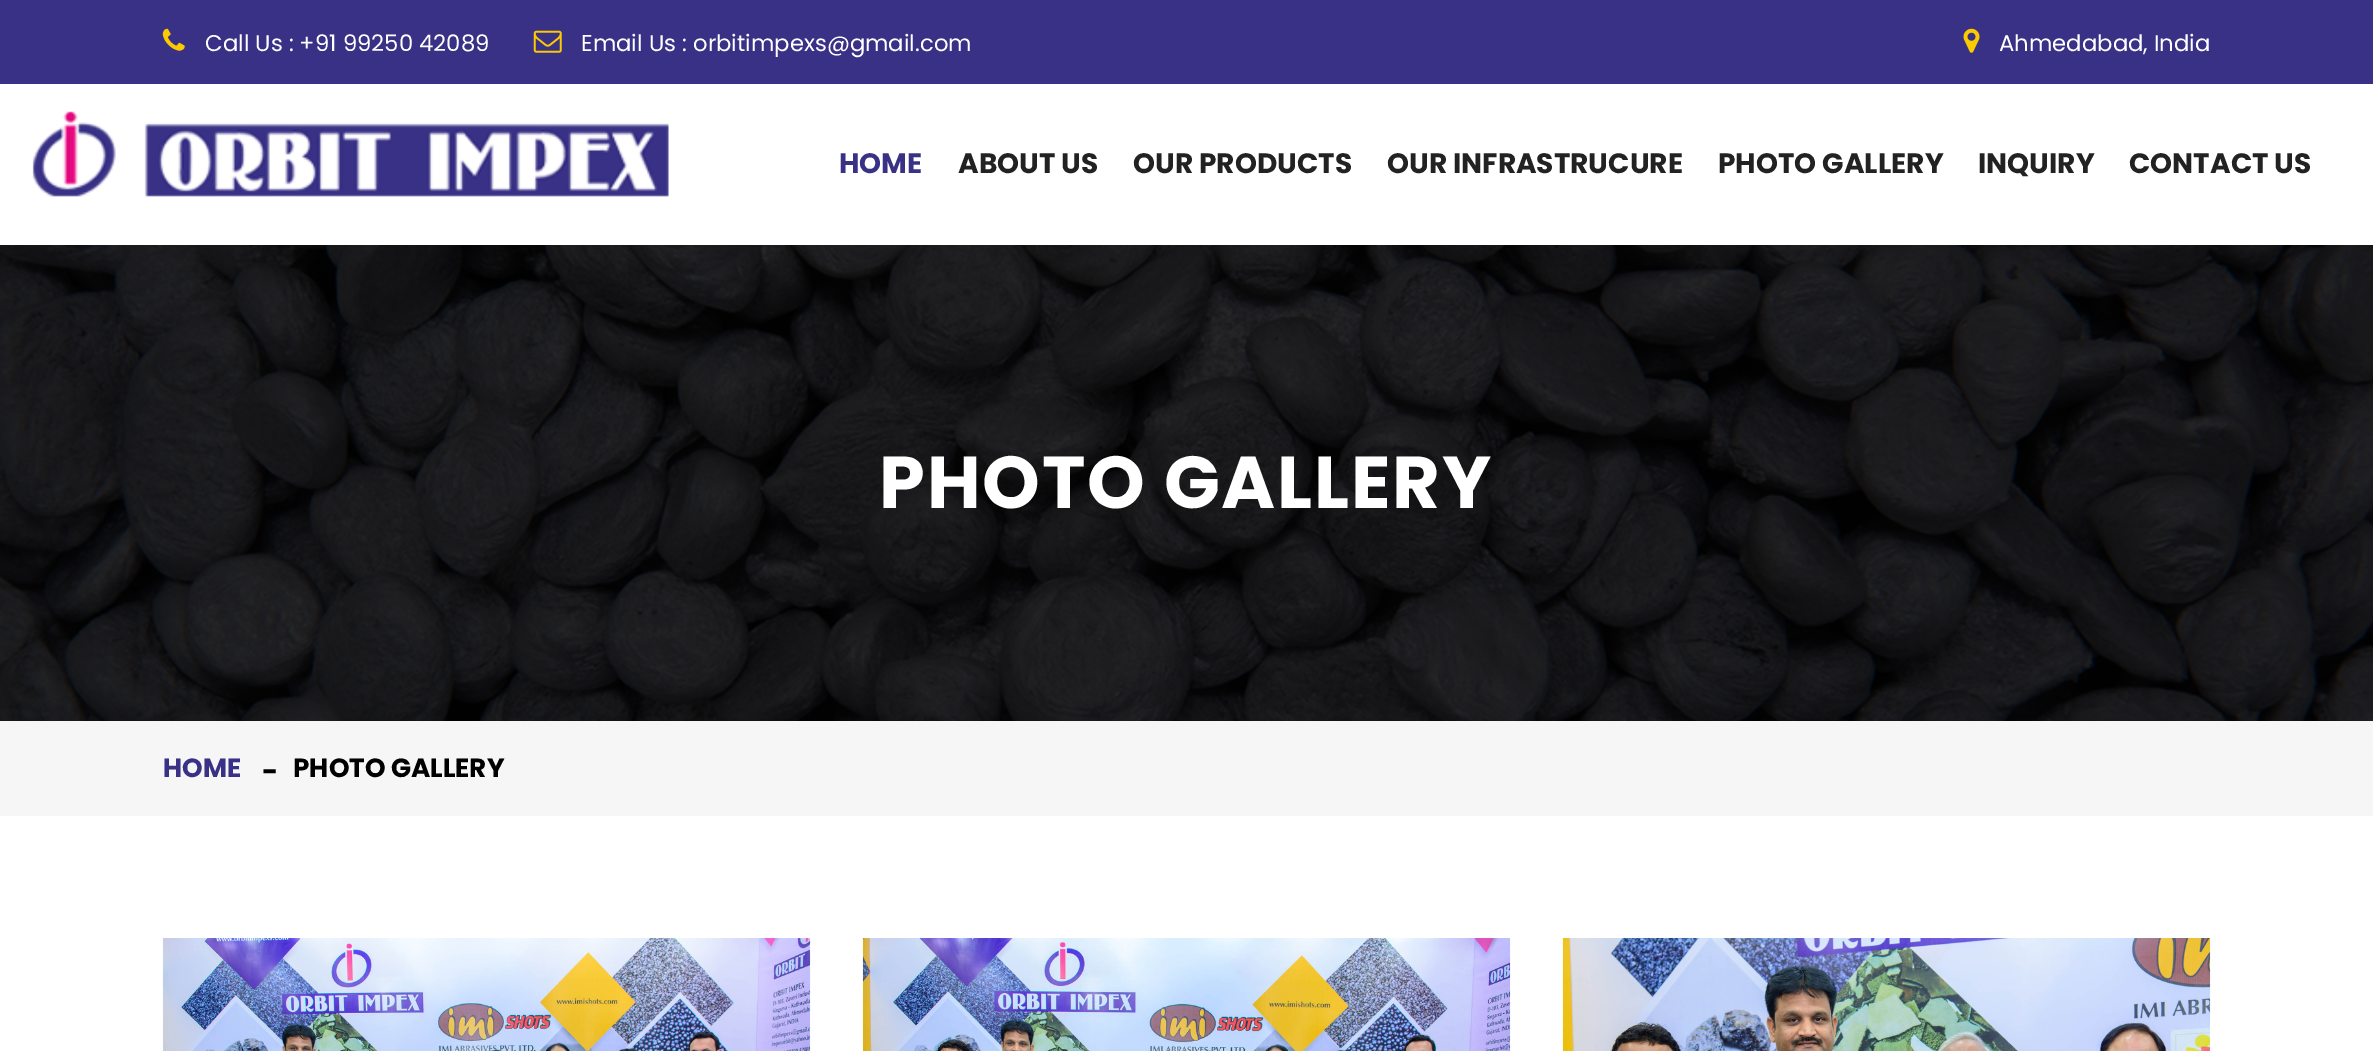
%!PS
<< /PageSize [2373 1051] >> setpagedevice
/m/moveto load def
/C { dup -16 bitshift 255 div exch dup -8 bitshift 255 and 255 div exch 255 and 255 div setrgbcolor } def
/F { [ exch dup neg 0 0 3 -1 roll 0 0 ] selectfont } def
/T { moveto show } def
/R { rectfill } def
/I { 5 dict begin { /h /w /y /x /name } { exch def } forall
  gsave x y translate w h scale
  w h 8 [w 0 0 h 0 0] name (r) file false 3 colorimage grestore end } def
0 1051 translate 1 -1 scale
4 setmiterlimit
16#FFFFFF C
0 0 2373 1051 R
16#393185 C
0 0 2373 84 R
(1.rgb) 162 28 23 23 I
/Poppins-Regular 22.75 F
16#FFFFFF C
(Call Us : +91 99250 42089) 205 51 T
(2.rgb) 533 30 29 23 I
(Email Us : orbitimpexs@gmail.com) 581 51 T
(3.rgb) 1963 28 17 25 I
(Ahmedabad, India) 1999 51 T
(4.rgb) 32 111 637 86 I
/Poppins-Bold 28 F
16#393185 C
(HOME) 839 173 T
16#222222 C
(ABOUT US) 958 173 T
(OUR PRODUCTS) 1133 173 T
(OUR INFRASTRUCURE) 1387 173 T
(PHOTO GALLERY) 1718 173 T
(INQUIRY) 1978 173 T
(CONTACT US) 2129 173 T
(5.rgb) 0 245 2373 476 I
/Poppins-Bold 73.5 F
16#FFFFFF C
879 508 m 1.75 0 (PHOTO GALLERY) ashow
16#F6F6F6 C
0 721 2373 95 R
/Poppins-Bold 26.25 F
16#393185 C
(HOME) 163 777 T
/Poppins-Bold 28 F
16#000000 C
(-) 262 781 T
/Poppins-Bold 26.25 F
(PHOTO GALLERY) 293 777 T
(6.rgb) 162 938 649 113 I
(7.rgb) 862 938 649 113 I
(8.rgb) 1562 938 649 113 I
showpage
